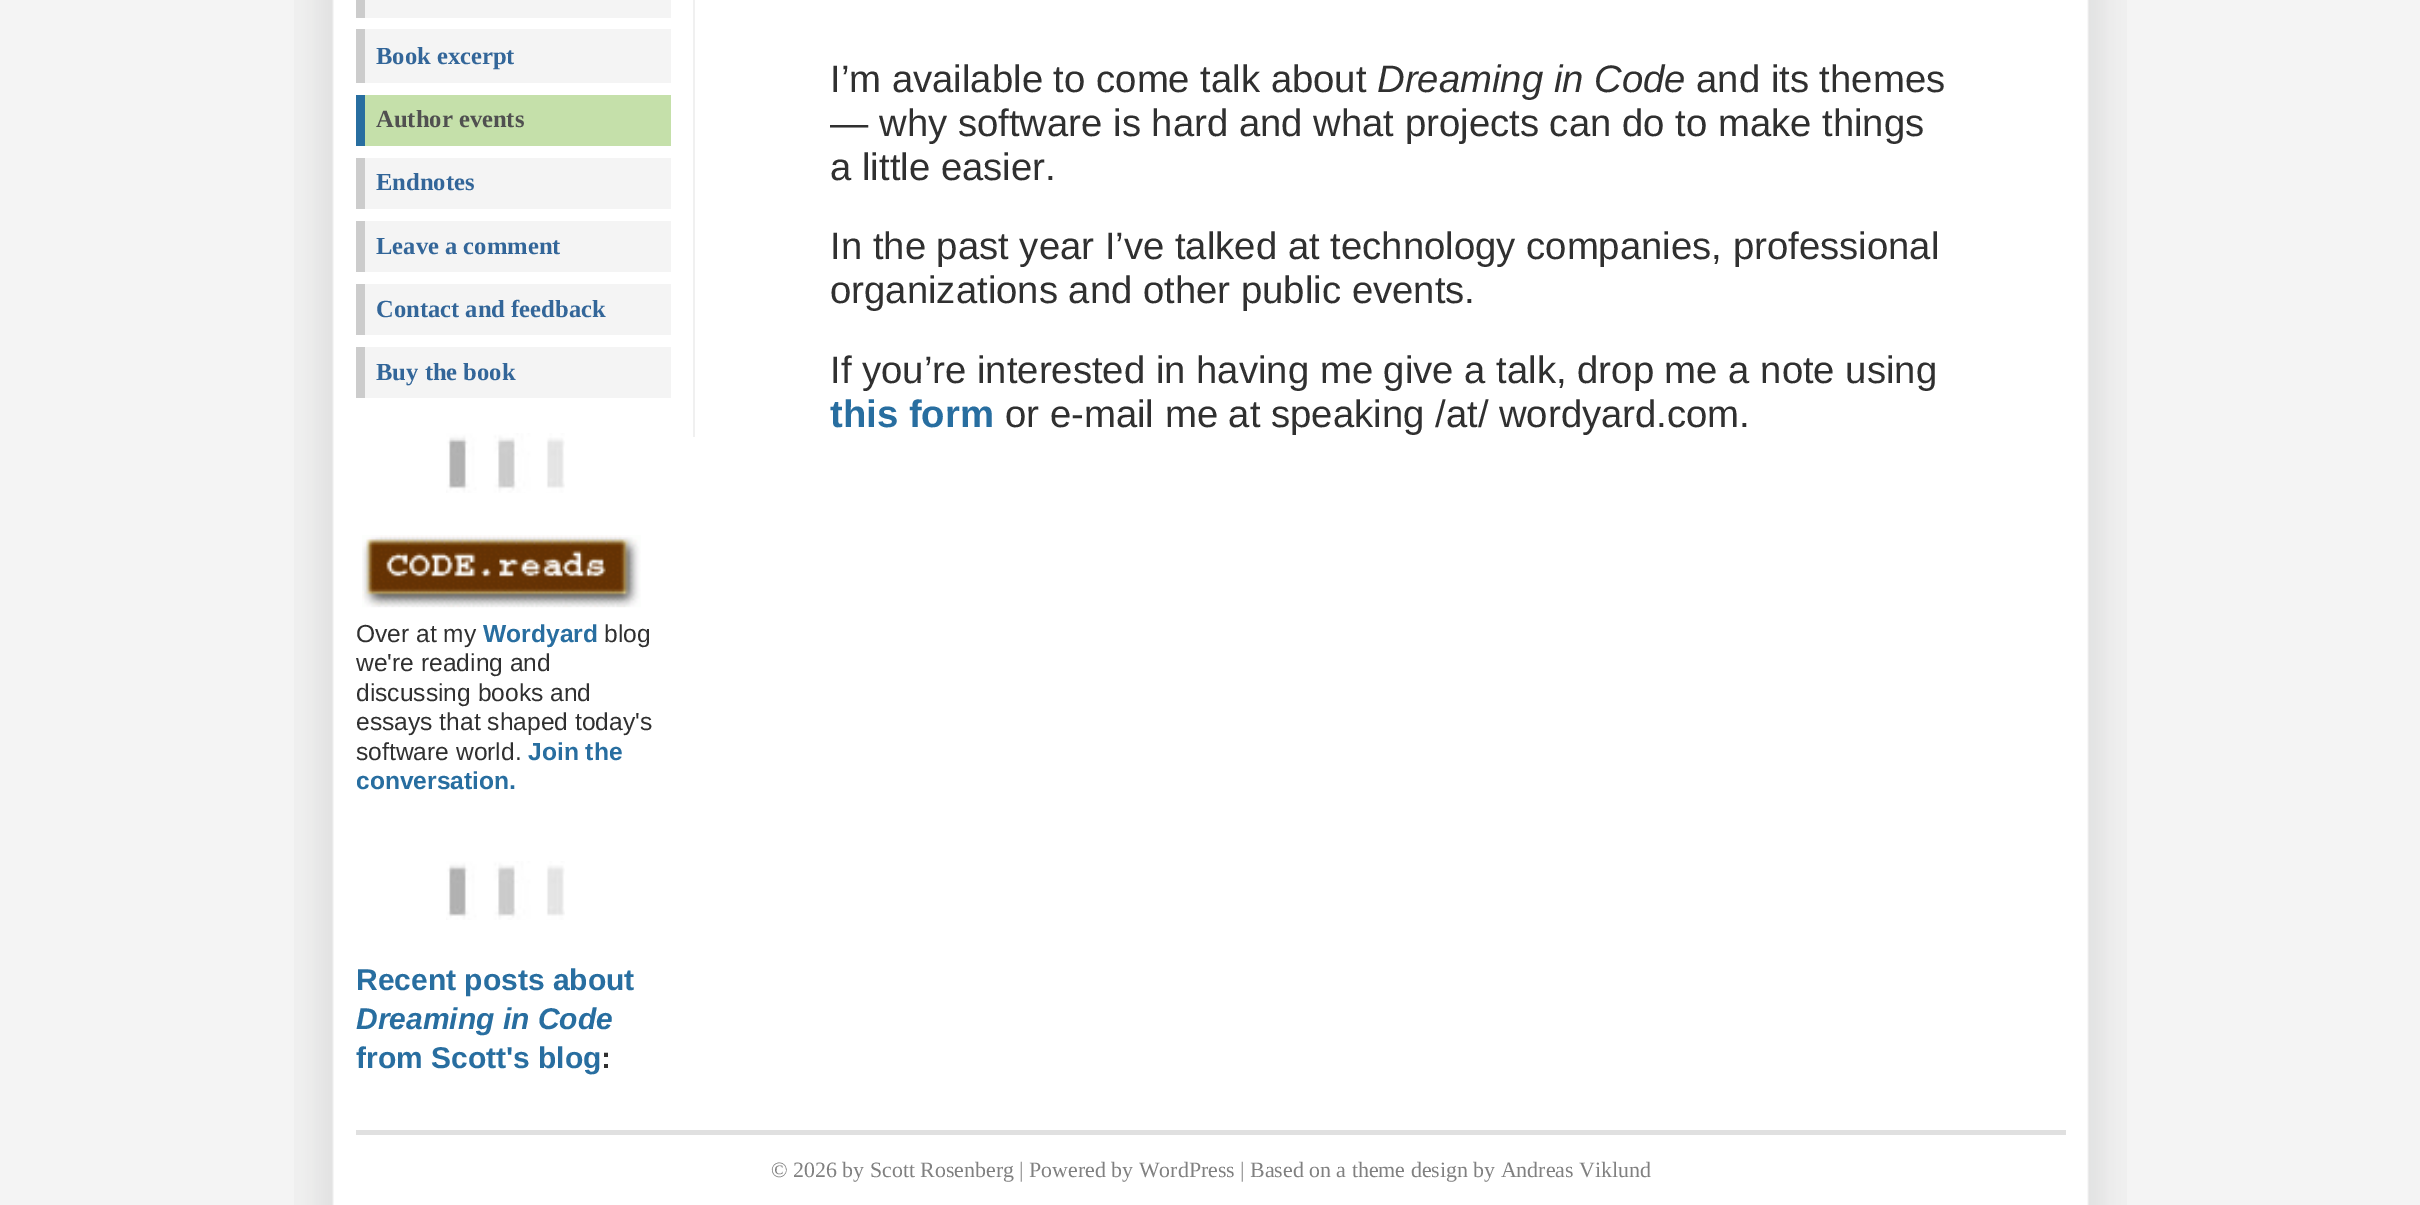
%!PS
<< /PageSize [2420 1205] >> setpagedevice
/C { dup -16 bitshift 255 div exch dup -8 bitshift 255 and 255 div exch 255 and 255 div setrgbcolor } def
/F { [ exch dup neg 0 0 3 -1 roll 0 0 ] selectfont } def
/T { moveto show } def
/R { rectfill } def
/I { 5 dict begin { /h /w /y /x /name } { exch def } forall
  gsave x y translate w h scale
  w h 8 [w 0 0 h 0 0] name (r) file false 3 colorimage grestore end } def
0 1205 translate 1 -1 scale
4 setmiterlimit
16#F4F4F4 C
0 0 2420 1205 R
(1.rgb) 294 0 1833 1205 I
365 0 306 18 R
16#CCCCCC C
356 0 9 18 R
16#F4F4F4 C
365 29 306 54 R
16#CCCCCC C
356 29 9 54 R
/LiberationSerif-Bold 24.6 F
16#336699 C
(Book excerpt) 376 64 T
16#C5E0AA C
365 95 306 51 R
16#286EA0 C
356 95 9 51 R
16#505050 C
(Author events) 376 127 T
16#F4F4F4 C
365 158 306 51 R
16#CCCCCC C
356 158 9 51 R
16#336699 C
(Endnotes) 376 190 T
16#F4F4F4 C
365 221 306 51 R
16#CCCCCC C
356 221 9 51 R
16#336699 C
(Leave a comment) 376 254 T
16#F4F4F4 C
365 284 306 51 R
16#CCCCCC C
356 284 9 51 R
16#336699 C
(Contact and feedback) 376 317 T
16#F4F4F4 C
365 347 306 51 R
16#CCCCCC C
356 347 9 51 R
16#336699 C
(Buy the book) 376 380 T
(2.rgb) 446 433 119 60 I
(3.rgb) 362 535 279 73 I
/LiberationSans-Regular 24.6 F
16#303030 C
(Over at my) 356 642 T
/LiberationSans-Bold 24.6 F
16#286EA0 C
(Wordyard) 483 642 T
/LiberationSans-Regular 24.6 F
16#303030 C
(blog) 604 642 T
(we're reading and) 356 671 T
(discussing books and) 356 701 T
(essays that shaped today's) 356 730 T
(software world.) 356 760 T
/LiberationSans-Bold 24.6 F
16#286EA0 C
(Join the) 528 760 T
(conversation.) 356 789 T
(4.rgb) 446 861 119 59 I
/LiberationSans-Bold 30 F
(Recent posts about) 356 990 T
/LiberationSans-BoldItalic 30 F
(Dreaming in Code) 356 1029 T
/LiberationSans-Bold 30 F
(from Scott's blog) 356 1068 T
16#303030 C
(:) 601 1068 T
16#F0F0F0 C
693 0 2 437 R
/LiberationSans-Regular 38.3 F
16#303030 C
(I’m available to come talk about) 830 92 T
/LiberationSans-Italic 38.3 F
(Dreaming in Code) 1377 92 T
/LiberationSans-Regular 38.3 F
(and its themes) 1696 92 T
(— why software is hard and what projects can do to make things) 830 136 T
(a little easier.) 830 180 T
(In the past year I’ve talked at technology companies, professional) 830 259 T
(organizations and other public events.) 830 303 T
(If you’re interested in having me give a talk, drop me a note using) 830 383 T
/LiberationSans-Bold 38.3 F
16#286EA0 C
(this form) 830 427 T
/LiberationSans-Regular 38.3 F
16#303030 C
(or e-mail me at speaking /at/ wordyard.com.) 1005 427 T
16#E0E0E0 C
356 1130 1710 5 R
/LiberationSerif-Regular 21.9 F
16#808080 C
(© 2026 by Scott Rosenberg | Powered by WordPress | Based on a theme design by Andreas Viklund) 771 1177 T
showpage
